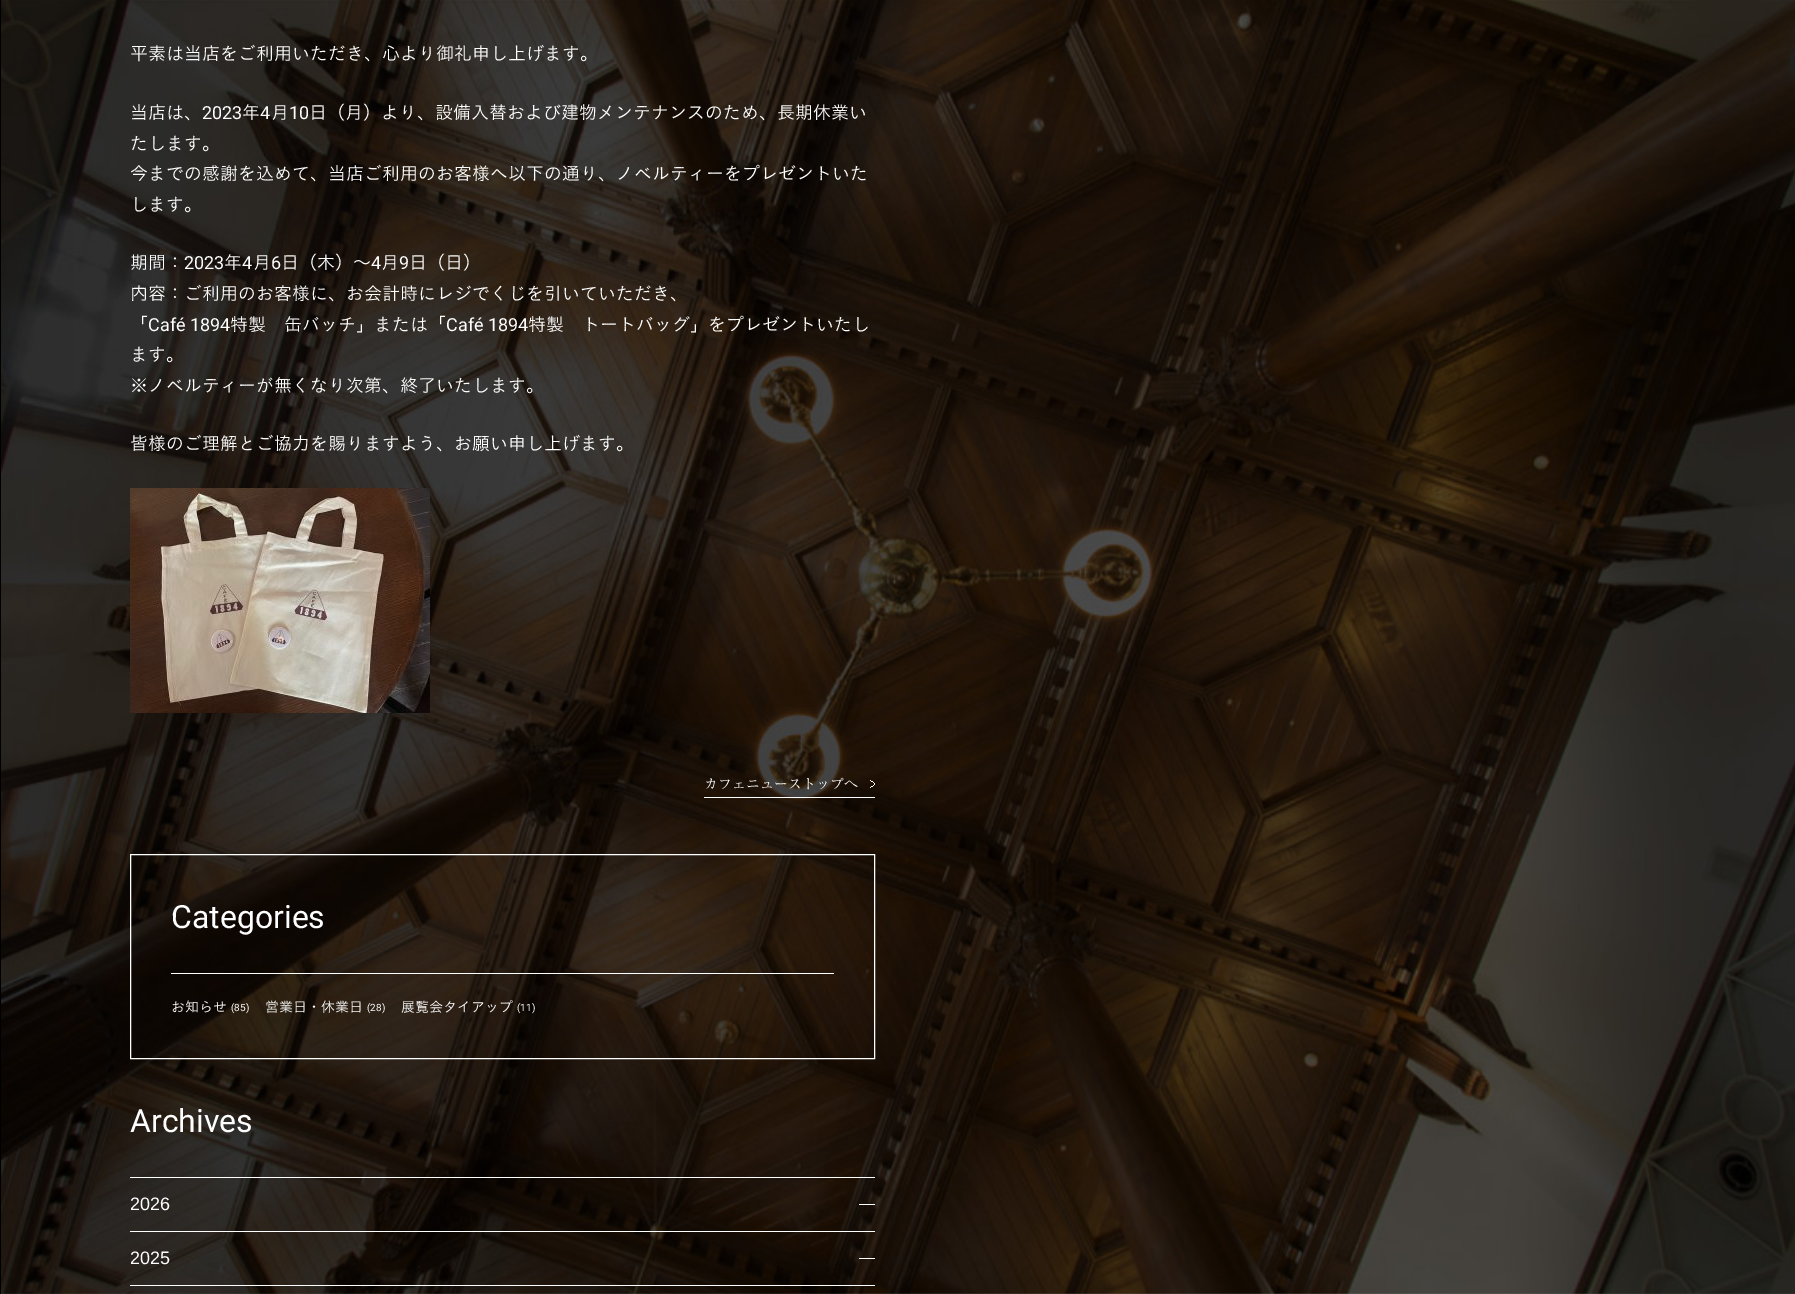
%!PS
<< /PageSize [1795 1294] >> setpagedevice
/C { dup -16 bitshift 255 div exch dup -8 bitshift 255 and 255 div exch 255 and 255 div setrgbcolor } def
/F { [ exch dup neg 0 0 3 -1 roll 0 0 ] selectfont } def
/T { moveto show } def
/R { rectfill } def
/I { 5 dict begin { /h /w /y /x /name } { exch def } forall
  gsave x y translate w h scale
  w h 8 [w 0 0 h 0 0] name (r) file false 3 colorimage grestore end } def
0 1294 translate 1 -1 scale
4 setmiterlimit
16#000000 C
0 0 1795 1294 R
(1.rgb) 1 0 1794 1294 I
/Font-Light 18 F
16#FFFFFF C
(平素は当店をご利用いただき、心より御礼申し上げます。) 130 60 T
(当店は、) 130 119 T
/Roboto-Regular 18 F
(2023) 202 119 T
/Font-Light 18 F
(年) 242 119 T
/Roboto-Regular 18 F
(4) 260 119 T
/Font-Light 18 F
(月) 271 119 T
/Roboto-Regular 18 F
(10) 289 119 T
/Font-Light 18 F
(日（月）より、設備入替および建物メンテナンスのため、長期休業い) 309 119 T
(たします。) 130 150 T
(今までの感謝を込めて、当店ご利用のお客様へ以下の通り、ノベルティーをプレゼントいた) 130 180 T
(します。) 130 211 T
(期間：) 130 269 T
/Roboto-Regular 18 F
(2023) 184 269 T
/Font-Light 18 F
(年) 224 269 T
/Roboto-Regular 18 F
(4) 242 269 T
/Font-Light 18 F
(月) 253 269 T
/Roboto-Regular 18 F
(6) 271 269 T
/Font-Light 18 F
(日（木）～) 281 269 T
/Roboto-Regular 18 F
(4) 371 269 T
/Font-Light 18 F
(月) 381 269 T
/Roboto-Regular 18 F
(9) 399 269 T
/Font-Light 18 F
(日（日）) 409 269 T
(内容：ご利用のお客様に、お会計時にレジでくじを引いていただき、) 130 300 T
(「) 130 331 T
/Roboto-Regular 18 F
(Café 1894) 148 331 T
/Font-Light 18 F
(特製　缶バッチ」または「) 230 331 T
/Roboto-Regular 18 F
(Café 1894) 446 331 T
/Font-Light 18 F
(特製　トートバッグ」をプレゼントいたし) 528 331 T
(ます。) 130 361 T
(※ノベルティーが無くなり次第、終了いたします。) 130 392 T
(皆様のご理解とご協力を賜りますよう、お願い申し上げます。) 130 450 T
(2.rgb) 130 488 300 225 I
704 797 171 1 R
/Font-Regular 14 F
(カフェニューストップへ) 704 789 T
(3.rgb) 870 780 5 8 I
130.5 854.5 744 204 rectstroke
171 973 663 1 R
/Roboto-Regular 32 F
(Categories) 171 928 T
/Font-Light 14 F
(お知らせ) 171 1012 T
/Roboto-Regular 10 F
(\(85\)) 231 1011 T
/Font-Light 14 F
(営業日・休業日) 265 1012 T
/Roboto-Regular 10 F
(\(28\)) 367 1011 T
/Font-Light 14 F
(展覧会タイアップ) 401 1012 T
/Roboto-Regular 10 F
(\(11\)) 517 1011 T
/Roboto-Regular 32 F
(Archives) 130 1132 T
130 1177 745 1 R
/LiberationSans-Regular 18 F
(2026) 130 1210 T
859 1204 16 1 R
130 1231 745 1 R
(2025) 130 1264 T
859 1258 16 1 R
130 1285 745 1 R
showpage
